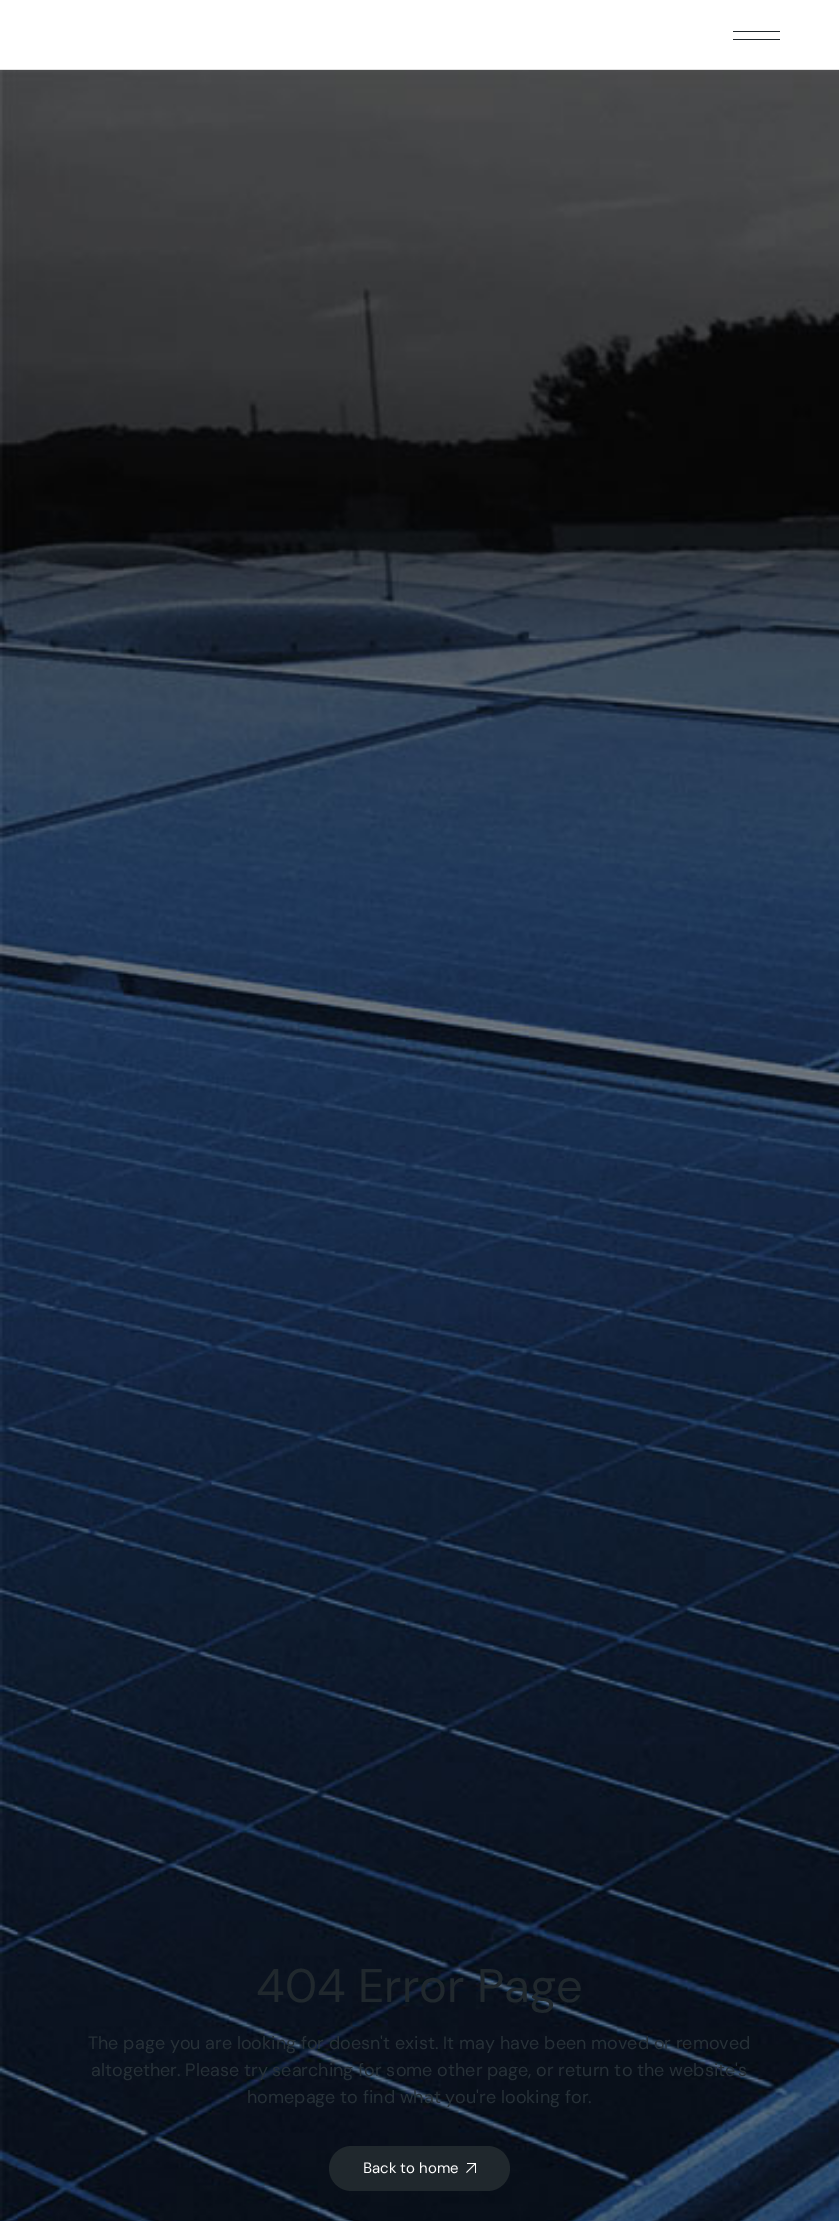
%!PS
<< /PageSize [839 2221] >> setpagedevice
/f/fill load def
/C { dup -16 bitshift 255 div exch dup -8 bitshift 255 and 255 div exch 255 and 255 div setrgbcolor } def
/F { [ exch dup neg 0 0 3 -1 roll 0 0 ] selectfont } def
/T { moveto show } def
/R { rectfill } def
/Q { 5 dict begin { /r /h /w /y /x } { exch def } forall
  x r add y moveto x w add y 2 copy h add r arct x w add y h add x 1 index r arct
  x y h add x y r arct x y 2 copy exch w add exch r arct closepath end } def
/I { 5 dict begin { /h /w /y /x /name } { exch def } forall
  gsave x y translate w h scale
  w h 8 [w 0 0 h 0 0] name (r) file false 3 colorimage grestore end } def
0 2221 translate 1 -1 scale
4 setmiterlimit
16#FFFFFF C
0 0 839 2221 R
16#E1E1E1 C
0 69 839 1 R
16#20282D C
733 31 47 1 R
733 39 47 1 R
(1.rgb) 0 70 839 2151 I
/DMSans-Regular 47 F
(404 Error Page) 256 2002 T
/DMSans-Regular 18 F
16#263037 C
(The page you are looking for doesn't exist. It may have been moved or removed) 88 2049 T
(altogether. Please try searching for some other page, or return to the website's) 91 2076 T
(homepage to find what you're looking for.) 247 2103 T
16#20282D C
329 2146 181 45 22.5 Q f
/DMSans-Regular 15 F
16#FFFFFF C
(Back to home) 363 2173 T
(2.rgb) 466 2163 10 10 I
showpage
